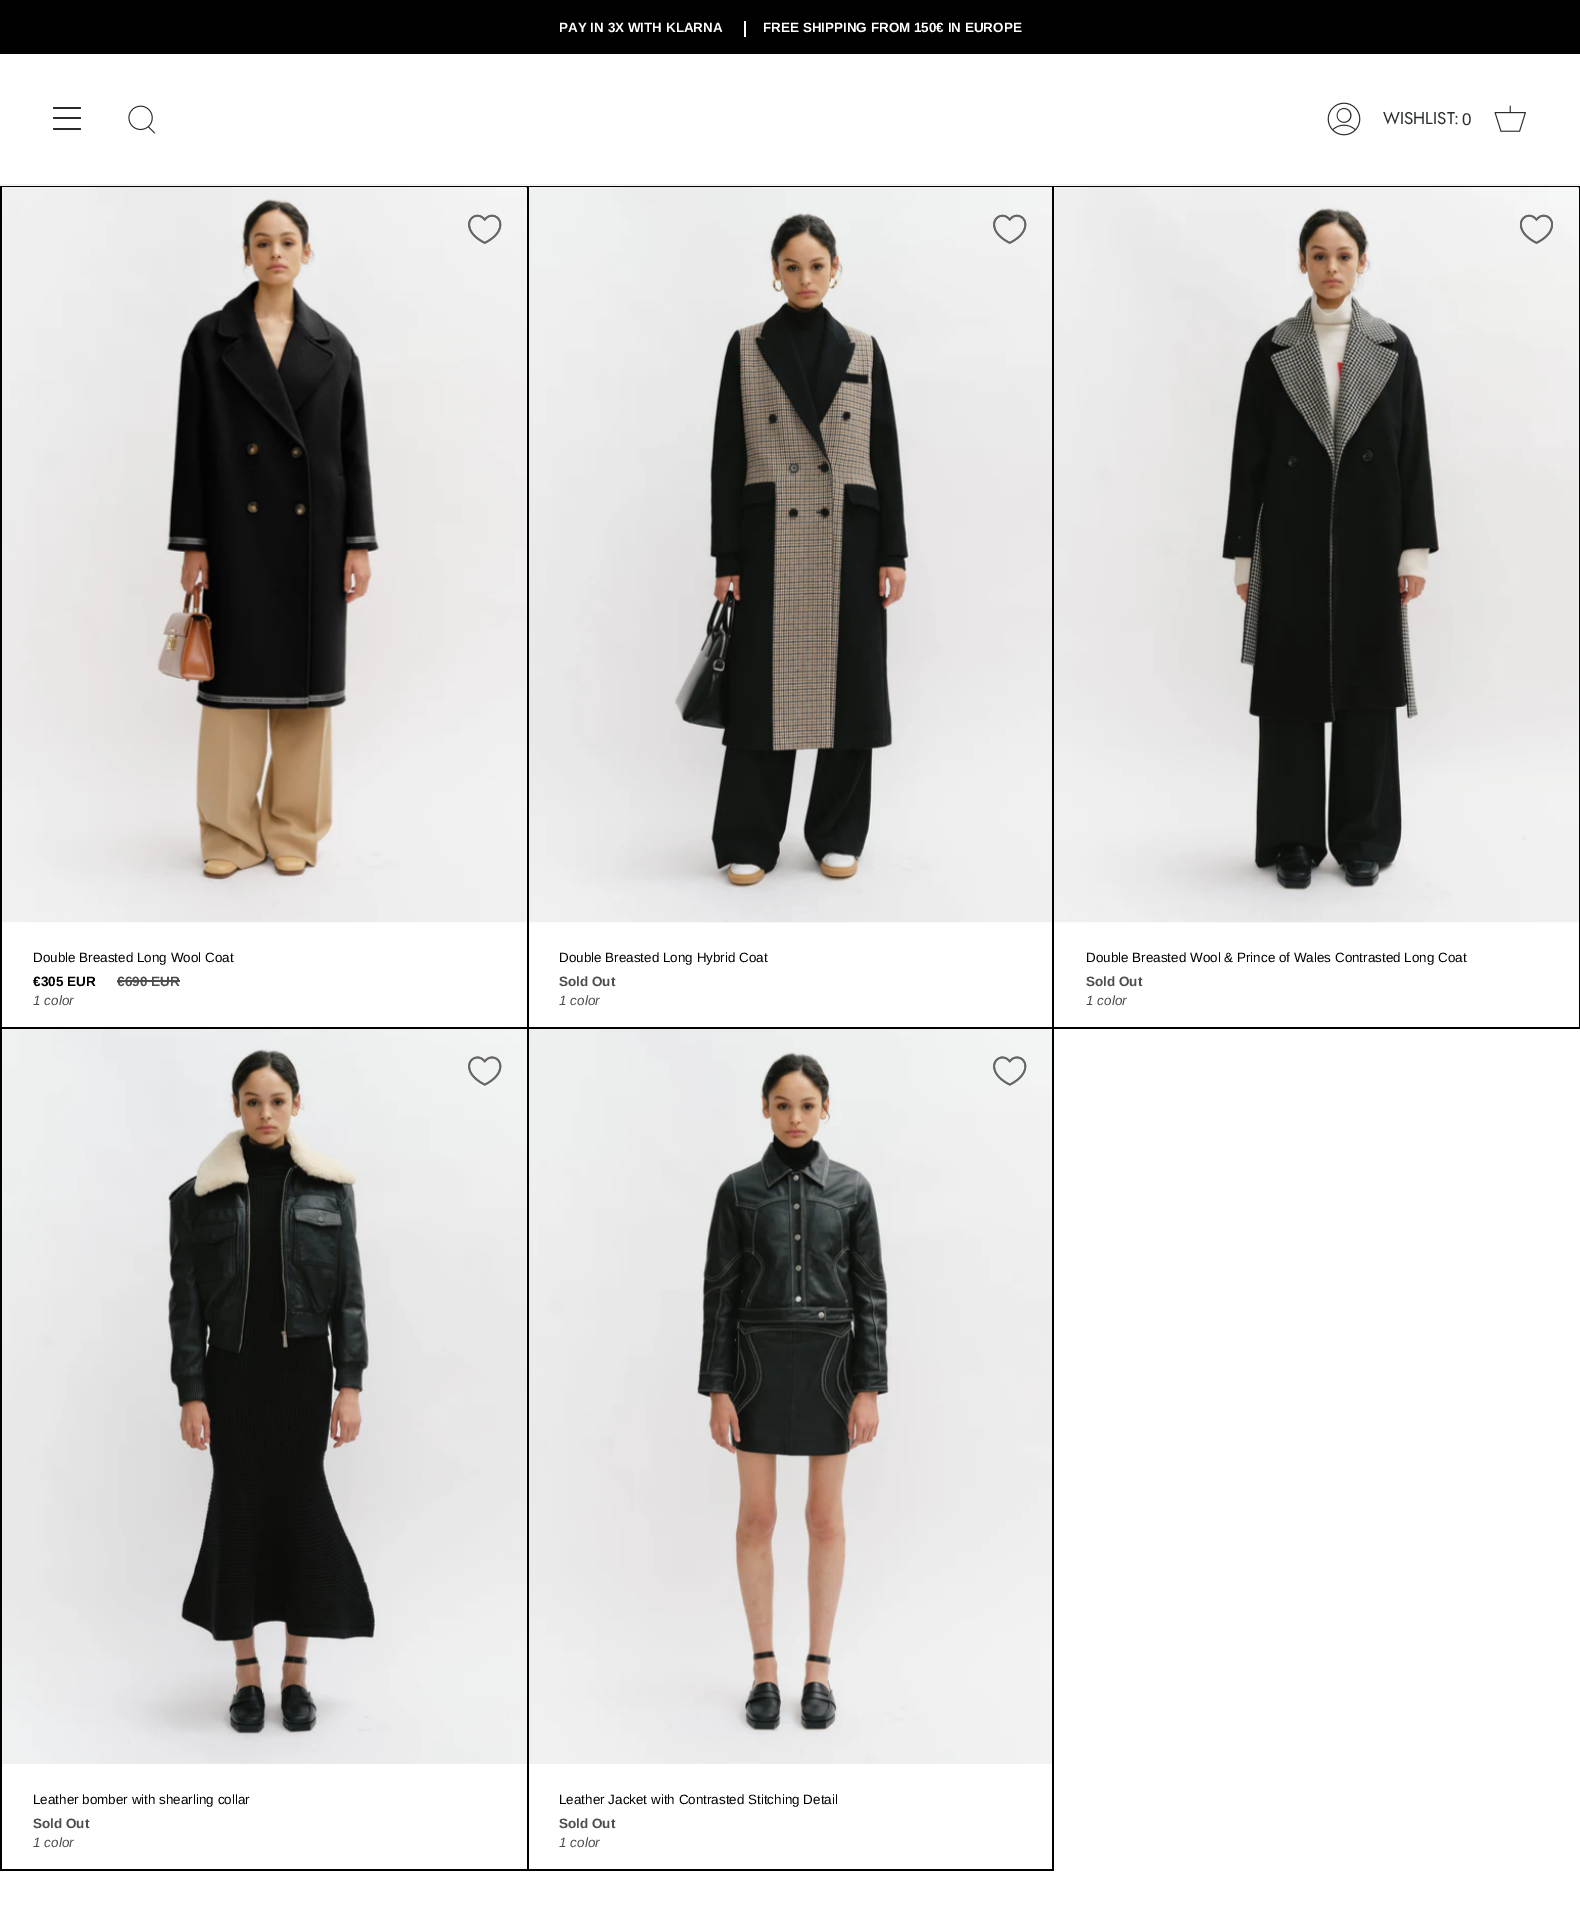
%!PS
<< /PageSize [1580 1923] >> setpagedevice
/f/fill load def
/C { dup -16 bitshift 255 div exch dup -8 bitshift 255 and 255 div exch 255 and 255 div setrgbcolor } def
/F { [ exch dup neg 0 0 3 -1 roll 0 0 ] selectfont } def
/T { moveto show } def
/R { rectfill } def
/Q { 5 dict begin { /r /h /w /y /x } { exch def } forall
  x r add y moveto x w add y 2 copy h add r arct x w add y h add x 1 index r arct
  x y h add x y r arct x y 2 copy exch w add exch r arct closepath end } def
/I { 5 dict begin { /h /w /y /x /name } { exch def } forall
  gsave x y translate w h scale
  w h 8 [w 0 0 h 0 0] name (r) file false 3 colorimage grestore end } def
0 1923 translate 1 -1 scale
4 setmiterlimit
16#FFFFFF C
0 0 1580 1923 R
16#010101 C
0 0 1580 54 R
/LiberationSans-Bold 13.45 F
16#FFFFFF C
(PAY IN 3X WITH KLARNA) 559 32 T
(FREE SHIPPING FROM 150€ IN EUROPE) 763 32 T
744 21 2 16 R
16#F3F3F3 C
0 184 1580 2 R
16#282C2E C
53 107 28 2 1 Q f
53 117 28 2 1 Q f
53 128 28 2 1 Q f
(1.rgb) 128 105 28 29 I
(2.rgb) 1327 102 34 34 I
/Jost-Regular 17 F
(WISHLIST:) 1383 124 T
/LiberationSans-Regular 17 F
(0) 1462 125 T
(3.rgb) 1494 105 32 27 I
16#000000 C
2 186 527 2 R
527 186 2 843 R
0 186 2 1685 R
(4.rgb) 2 187 525 736 I
(5.rgb) 468 214 34 30 I
(6.rgb) 468 214 34 30 I
/LiberationSans-Regular 13.45 F
(Double Breasted Long Wool Coat) 33 962 T
/LiberationSans-Bold 13.5 F
(€305 EUR) 33 986 T
16#4D4D4D C
(€690 EUR) 117 986 T
117 980 63 2 R
/LiberationSans-Italic 13.5 F
(1 color) 33 1005 T
16#000000 C
529 186 525 1 R
1052 186 2 843 R
(7.rgb) 529 187 523 736 I
(8.rgb) 993 214 34 30 I
(9.rgb) 993 214 34 30 I
/LiberationSans-Regular 13.45 F
(Double Breasted Long Hybrid Coat) 559 962 T
/LiberationSans-Bold 13.5 F
16#4D4D4D C
(Sold Out) 559 986 T
/LiberationSans-Italic 13.5 F
(1 color) 559 1005 T
16#000000 C
1054 186 526 2 R
1579 186 1 843 R
1054 1027 526 2 R
(10.rgb) 1054 187 525 736 I
(11.rgb) 1519 214 34 30 I
(12.rgb) 1519 214 34 30 I
/LiberationSans-Regular 13.45 F
(Double Breasted Wool & Prince of Wales Contrasted Long Coat) 1086 962 T
/LiberationSans-Bold 13.5 F
16#4D4D4D C
(Sold Out) 1086 986 T
/LiberationSans-Italic 13.5 F
(1 color) 1086 1005 T
16#000000 C
2 1027 1052 2 R
527 1027 2 844 R
2 1869 527 2 R
(13.rgb) 2 1029 525 735 I
(14.rgb) 468 1056 34 30 I
(15.rgb) 468 1056 34 30 I
/LiberationSans-Regular 13.45 F
(Leather bomber with shearling collar) 33 1804 T
/LiberationSans-Bold 13.5 F
16#4D4D4D C
(Sold Out) 33 1828 T
/LiberationSans-Italic 13.5 F
(1 color) 33 1847 T
16#000000 C
1052 1027 2 844 R
529 1869 525 2 R
(16.rgb) 529 1029 523 735 I
(17.rgb) 993 1056 34 30 I
(18.rgb) 993 1056 34 30 I
/LiberationSans-Regular 13.45 F
(Leather Jacket with Contrasted Stitching Detail) 559 1804 T
/LiberationSans-Bold 13.5 F
16#4D4D4D C
(Sold Out) 559 1828 T
/LiberationSans-Italic 13.5 F
(1 color) 559 1847 T
showpage
